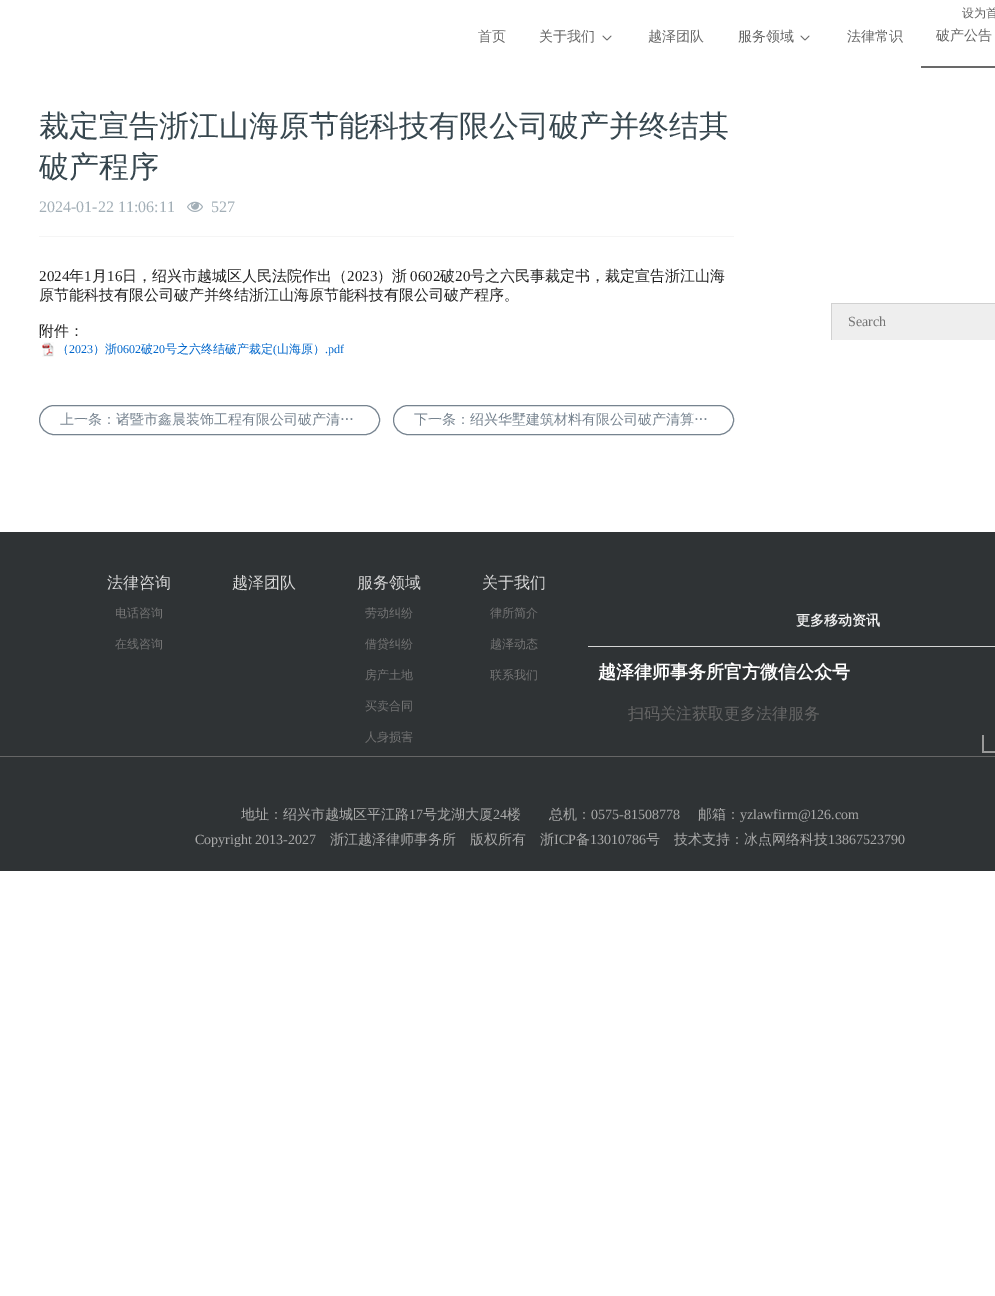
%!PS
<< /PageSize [995 1296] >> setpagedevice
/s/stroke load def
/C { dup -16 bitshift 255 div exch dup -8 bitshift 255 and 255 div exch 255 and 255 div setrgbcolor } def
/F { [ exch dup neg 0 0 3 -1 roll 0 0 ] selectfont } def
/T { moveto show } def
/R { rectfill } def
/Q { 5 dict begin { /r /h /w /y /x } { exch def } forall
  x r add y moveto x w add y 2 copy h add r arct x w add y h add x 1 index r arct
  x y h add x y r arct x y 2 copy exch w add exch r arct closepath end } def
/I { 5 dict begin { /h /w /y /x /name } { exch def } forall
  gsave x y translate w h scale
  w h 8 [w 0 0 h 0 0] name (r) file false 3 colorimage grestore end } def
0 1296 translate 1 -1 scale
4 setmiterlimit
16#FFFFFF C
0 0 995 1296 R
/WenQuanYiZenHei-Medium 12 F
16#666666 C
(设为首) 962 17 T
/WenQuanYiZenHei-Medium 14 F
(首页) 478 41 T
(关于我们) 539 41 T
(1.rgb) 602 35 10 6 I
(越泽团队) 648 41 T
(服务领域) 738 41 T
(1.rgb) 800 35 10 6 I
(法律常识) 847 41 T
16#696969 C
921 66 74 2 R
16#666666 C
(破产公告) 936 40 T
/WenQuanYiZenHei-Medium 30 F
16#37474F C
(裁定宣告浙江山海原节能科技有限公司破产并终结其) 39 136 T
(破产程序) 39 177 T
16#F5F5F5 C
39 236 695 1 R
/LiberationSerif-Regular 16 F
16#A3AFB7 C
(2024-01-22 11:06:11) 39 212 T
(2.rgb) 187 201 16 11 I
(527) 211 212 T
/LiberationSerif-Regular 15 F
16#222222 C
(2024) 39 281 T
/WenQuanYiZenHei-Medium 15 F
(年) 69 281 T
/LiberationSerif-Regular 15 F
(1) 84 281 T
/WenQuanYiZenHei-Medium 15 F
(月) 92 281 T
/LiberationSerif-Regular 15 F
(16) 107 281 T
/WenQuanYiZenHei-Medium 15 F
(日，绍兴市越城区人民法院作出（) 122 281 T
/LiberationSerif-Regular 15 F
(2023) 347 281 T
/WenQuanYiZenHei-Medium 15 F
(）浙) 377 281 T
/LiberationSerif-Regular 15 F
(0602) 410 281 T
/WenQuanYiZenHei-Medium 15 F
(破) 440 281 T
/LiberationSerif-Regular 15 F
(20) 455 281 T
/WenQuanYiZenHei-Medium 15 F
(号之六民事裁定书，裁定宣告浙江山海) 470 281 T
(原节能科技有限公司破产并终结浙江山海原节能科技有限公司破产程序。) 39 300 T
(附件：) 39 336 T
(3.rgb) 42 342 12 15 I
/WenQuanYiZenHei-Medium 12 F
16#0066CC C
(（) 57 353 T
/LiberationSerif-Regular 12 F
(2023) 69 353 T
/WenQuanYiZenHei-Medium 12 F
(）浙) 93 353 T
/LiberationSerif-Regular 12 F
(0602) 117 353 T
/WenQuanYiZenHei-Medium 12 F
(破) 141 353 T
/LiberationSerif-Regular 12 F
(20) 153 353 T
/WenQuanYiZenHei-Medium 12 F
(号之六终结破产裁定) 165 353 T
/LiberationSerif-Regular 12 F
(\() 273 353 T
/WenQuanYiZenHei-Medium 12 F
(山海原）) 277 353 T
/LiberationSerif-Regular 12 F
(.pdf) 325 353 T
16#76838F C
39.5 405.5 340 29 14.5 Q s
/WenQuanYiZenHei-Medium 14 F
(上一条：诸暨市鑫晨装饰工程有限公司破产清…) 60 424 T
393.5 405.5 340 29 14.5 Q s
(下一条：绍兴华墅建筑材料有限公司破产清算…) 414 424 T
16#EEEEEE C
832 304 163 36 R
16#D1D1D1 C
831 303 164 1 R
831 303 1 37 R
/LiberationSerif-Regular 14 F
16#757575 C
(Search) 848 326 T
16#2F3335 C
0 532 995 339 R
/WenQuanYiZenHei-Medium 16 F
16#D9D9D9 C
(法律咨询) 107 588 T
/WenQuanYiZenHei-Medium 12 F
16#757575 C
(电话咨询) 115 617 T
(在线咨询) 115 648 T
/WenQuanYiZenHei-Medium 16 F
16#D9D9D9 C
(越泽团队) 232 588 T
(服务领域) 357 588 T
/WenQuanYiZenHei-Medium 12 F
16#757575 C
(劳动纠纷) 365 617 T
(借贷纠纷) 365 648 T
(房产土地) 365 679 T
(买卖合同) 365 710 T
(人身损害) 365 741 T
/WenQuanYiZenHei-Medium 16 F
16#D9D9D9 C
(关于我们) 482 588 T
/WenQuanYiZenHei-Medium 12 F
16#757575 C
(律所简介) 490 617 T
(越泽动态) 490 648 T
(联系我们) 490 679 T
16#D5D5D5 C
588 646 407 1 R
/WenQuanYiZenHei-Bold 14 F
16#F0F0F0 C
(更多移动资讯) 796 625 T
/WenQuanYiZenHei-Bold 18 F
16#FFFFFF C
(越泽律师事务所官方微信公众号) 598 678 T
/WenQuanYiZenHei-Medium 16 F
16#666666 C
(扫码关注获取更多法律服务) 628 719 T
(4.rgb) 982 735 13 18 I
0 756 995 1 R
/WenQuanYiZenHei-Medium 14 F
16#AAAAAA C
(地址：绍兴市越城区平江路) 241 819 T
/LiberationSerif-Regular 14 F
(17) 409 819 T
/WenQuanYiZenHei-Medium 14 F
(号龙湖大厦) 423 819 T
/LiberationSerif-Regular 14 F
(24) 493 819 T
/WenQuanYiZenHei-Medium 14 F
(楼　　总机：) 507 819 T
/LiberationSerif-Regular 14 F
(0575-81508778) 591 819 T
/WenQuanYiZenHei-Medium 14 F
(邮箱：) 698 819 T
/LiberationSerif-Regular 14 F
(yzlawfirm@126.com) 740 819 T
(Copyright 2013-2027) 195 844 T
/WenQuanYiZenHei-Medium 14 F
(浙江越泽律师事务所) 330 844 T
(版权所有) 470 844 T
(浙) 540 844 T
/LiberationSerif-Regular 14 F
(ICP) 554 844 T
/WenQuanYiZenHei-Medium 14 F
(备) 576 844 T
/LiberationSerif-Regular 14 F
(13010786) 590 844 T
/WenQuanYiZenHei-Medium 14 F
(号) 646 844 T
(技术支持：冰点网络科技) 674 844 T
/LiberationSerif-Regular 14 F
(13867523790) 828 844 T
showpage
